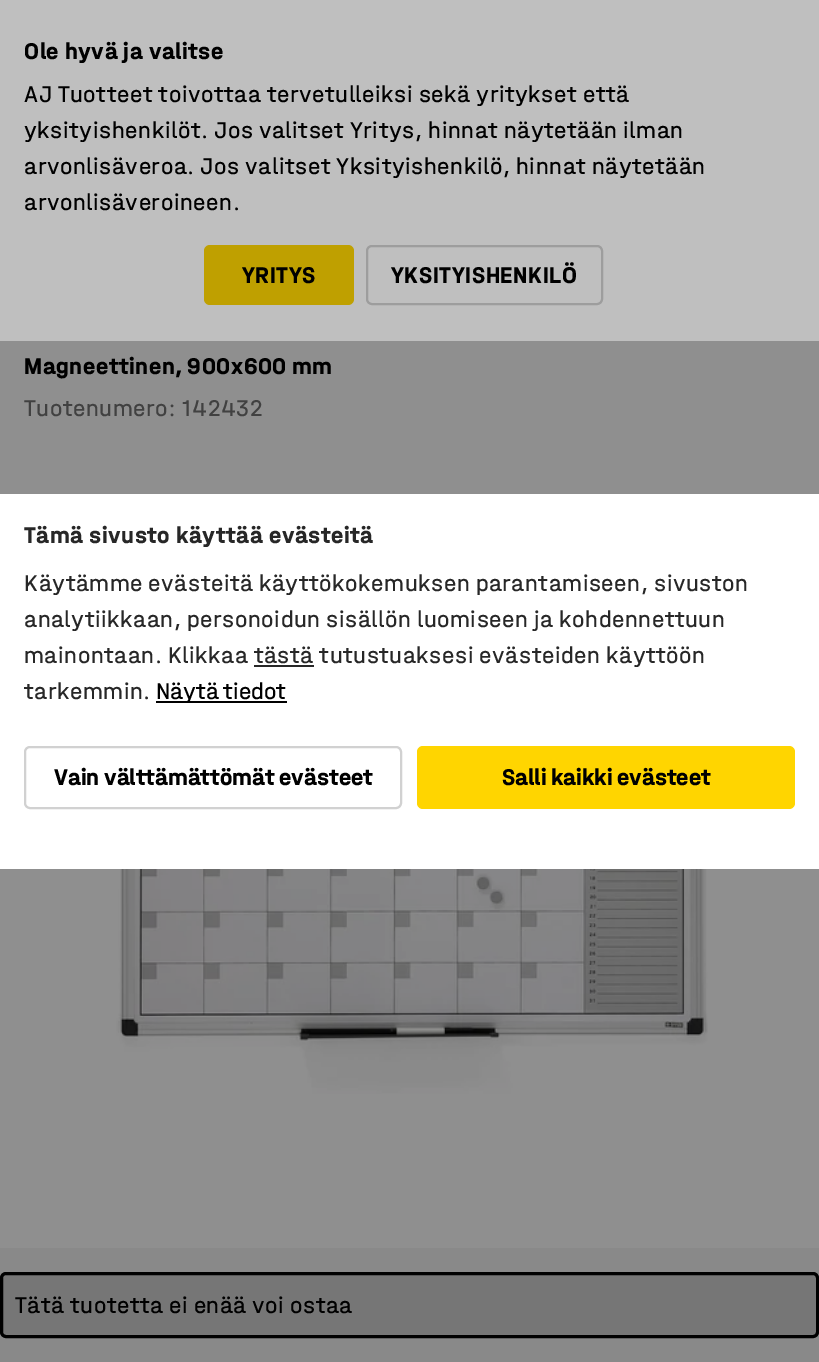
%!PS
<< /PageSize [819 1362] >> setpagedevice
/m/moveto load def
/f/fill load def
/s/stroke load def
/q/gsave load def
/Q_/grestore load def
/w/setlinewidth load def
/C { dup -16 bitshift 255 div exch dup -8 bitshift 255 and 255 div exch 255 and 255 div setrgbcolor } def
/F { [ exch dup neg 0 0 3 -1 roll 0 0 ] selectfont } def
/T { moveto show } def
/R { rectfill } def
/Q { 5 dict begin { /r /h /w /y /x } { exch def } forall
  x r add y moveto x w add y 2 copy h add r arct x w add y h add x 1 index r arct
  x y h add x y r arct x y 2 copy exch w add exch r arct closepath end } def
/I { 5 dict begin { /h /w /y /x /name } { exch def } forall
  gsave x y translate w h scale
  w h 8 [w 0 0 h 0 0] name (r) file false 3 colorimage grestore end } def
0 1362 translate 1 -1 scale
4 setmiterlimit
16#8F8F8F C
0 0 819 1362 R
16#BFBFBF C
0 0 819 341 R
/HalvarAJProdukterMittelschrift-Bold 24 F
16#000000 C
24 59 m .6 0 (Ole hyvä ja valitse) ashow
/HalvarAJProdukterMittelschrift-Regular 24 F
24 102 m .6 0 (AJ Tuotteet toivottaa tervetulleiksi sekä yritykset että) ashow
24 138 m .6 0 (yksityishenkilöt. Jos valitset Yritys, hinnat näytetään ilman) ashow
24 174 m .6 0 (arvonlisäveroa. Jos valitset Yksityishenkilö, hinnat näytetään) ashow
24 210 m .6 0 (arvonlisäveroineen.) ashow
16#BFA000 C
204 245 150 60 6 Q f
/HalvarAJProdukterMittelschrift-Bold 24 F
16#000000 C
242 283 m .6 0 (YRITYS) ashow
16#9D9D9D C
2 w
367 246 235 58 5 Q s
16#000000 C
391 283 m .6 0 (YKSITYISHENKILÖ) ashow
24 374 m -1 0 32 .6 0 (Magneettinen, 900x600 mm) awidthshow
/HalvarAJProdukterMittelschrift-Regular 24 F
16#414141 C
24 416 m .6 0 (Tuotenumero: 142432) ashow
(1.rgb) 116 869 592 225 I
16#898989 C
0 1248 819 114 R
16#767676 C
1.5 1273.5 816 63 4.5 Q q f Q_
16#000000 C
3 w
s
15 1313 m .6 0 (Tätä tuotetta ei enää voi ostaa) ashow
16#FFFFFF C
0 494 819 375 R
/HalvarAJProdukterMittelschrift-Bold 24 F
16#272727 C
24 543 m .6 0 (Tämä sivusto käyttää evästeitä) ashow
/HalvarAJProdukterMittelschrift-Regular 24 F
24 591 m .6 0 (Käytämme evästeitä käyttökokemuksen parantamiseen, sivuston) ashow
24 627 m .6 0 (analytiikkaan, personoidun sisällön luomiseen ja kohdennettuun) ashow
24 663 m .6 0 (mainontaan. Klikkaa tästä tutustuaksesi evästeiden käyttöön) ashow
254 665 60 2 R
24 699 m .6 0 (tarkemmin.) ashow
16#000000 C
156 701 131 2 R
(Näytä tiedot) 156 699 T
16#D1D1D1 C
2 w
25 747 376 61 5 Q s
/HalvarAJProdukterMittelschrift-Bold 24 F
16#000000 C
(Vain välttämättömät evästeet) 54 785 T
16#FFD500 C
417 746 378 63 6 Q f
16#000000 C
(Salli kaikki evästeet) 502 785 T
showpage
